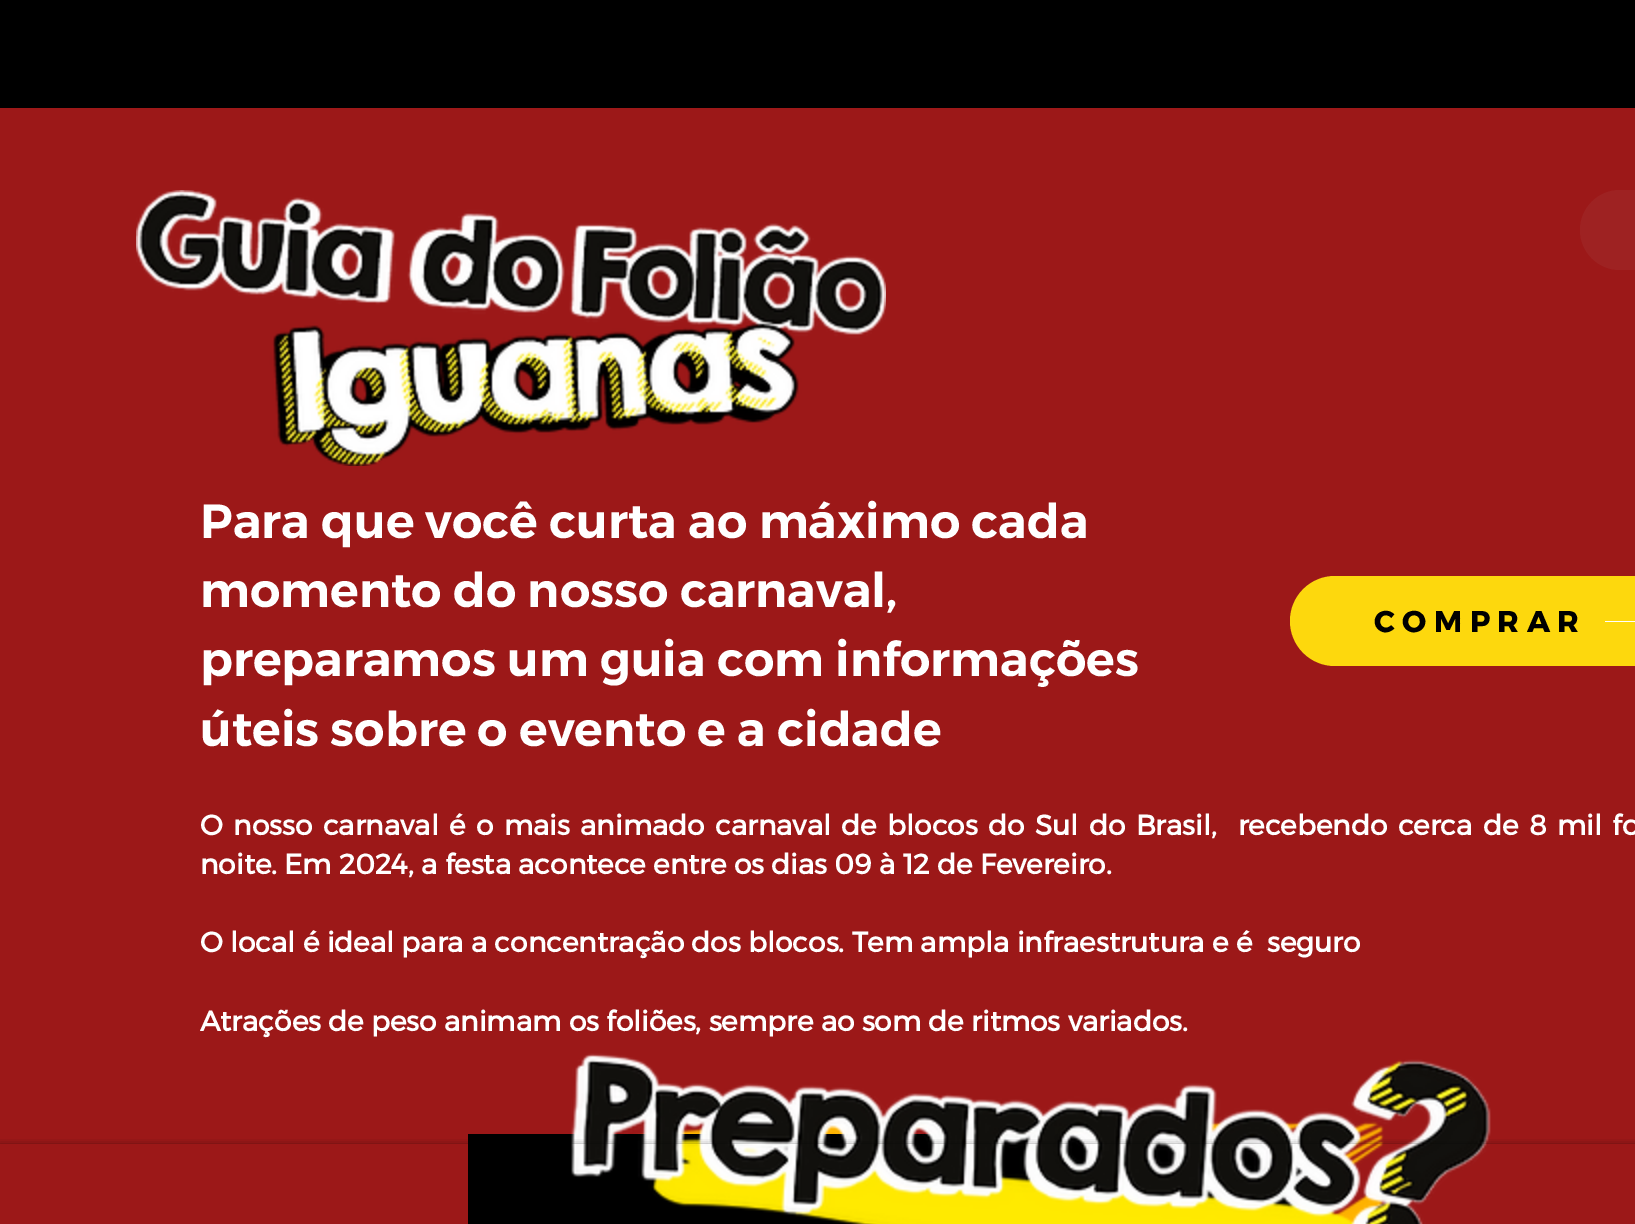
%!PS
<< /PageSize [1635 1224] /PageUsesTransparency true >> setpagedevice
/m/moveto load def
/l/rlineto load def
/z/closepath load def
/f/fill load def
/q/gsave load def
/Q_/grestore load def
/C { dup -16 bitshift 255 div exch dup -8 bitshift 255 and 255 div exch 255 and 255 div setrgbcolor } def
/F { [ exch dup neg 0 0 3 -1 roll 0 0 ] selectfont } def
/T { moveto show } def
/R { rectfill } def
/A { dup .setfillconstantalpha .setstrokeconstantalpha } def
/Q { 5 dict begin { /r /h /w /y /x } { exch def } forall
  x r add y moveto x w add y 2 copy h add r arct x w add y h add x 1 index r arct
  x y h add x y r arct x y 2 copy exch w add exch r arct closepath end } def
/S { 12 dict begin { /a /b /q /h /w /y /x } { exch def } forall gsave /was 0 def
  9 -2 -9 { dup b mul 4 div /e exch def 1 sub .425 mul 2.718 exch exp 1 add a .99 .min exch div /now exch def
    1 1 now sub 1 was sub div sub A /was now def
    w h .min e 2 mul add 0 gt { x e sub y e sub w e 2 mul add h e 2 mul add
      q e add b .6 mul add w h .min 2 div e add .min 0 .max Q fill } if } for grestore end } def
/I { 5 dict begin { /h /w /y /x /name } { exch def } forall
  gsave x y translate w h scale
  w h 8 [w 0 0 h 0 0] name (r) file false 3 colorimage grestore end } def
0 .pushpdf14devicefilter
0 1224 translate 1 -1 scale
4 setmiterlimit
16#000000 C
0 0 1635 1224 R
16#9C1818 C
0 108 1635 1116 R
(1.rgb) 136 190 750 276 I
16#9E2222 C
1580 190 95 80 40 Q f
/Montserrat-SemiBold 48 F
16#FFFFFF C
(Para que você curta ao máximo cada) 200 538 T
(momento do nosso carnaval,) 200 607 T
(preparamos um guia com informações) 200 676 T
(úteis sobre o evento e a cidade) 200 746 T
16#FDD80D C
1290 576 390 90 45 Q f
/Montserrat-Bold 30 F
16#000000 C
1374 632 m 7.5 0 (COMPRAR) ashow
16#FFFFFF C
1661 610 m -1 1 l 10 10 l -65 0 l 0 1 l 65 0 l -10 9 l 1 1 l 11 -11 l z f
/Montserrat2-Bold 28 F
200 835 m 3.1 0 32 (O nosso carnaval é o mais animado carnaval de blocos do Sul do Brasil,  recebendo cerca de 8 mil fo) widthshow
(noite. Em 2024, a festa acontece entre os dias 09 à 12 de Fevereiro.) 200 874 T
(O local é ideal para a concentração dos blocos. Tem ampla infraestrutura e é  seguro) 200 952 T
(Atrações de peso animam os foliões, sempre ao som de ritmos variados.) 200 1031 T
(3.rgb) 635 1121 749 103 I
16#000000 C
468 1134 862 90 R
(2.rgb) 571 1053 920 171 I
q
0 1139 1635 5 rectclip
0 1146 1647 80 0 4 .6 S
Q_
.poppdf14devicefilter showpage
